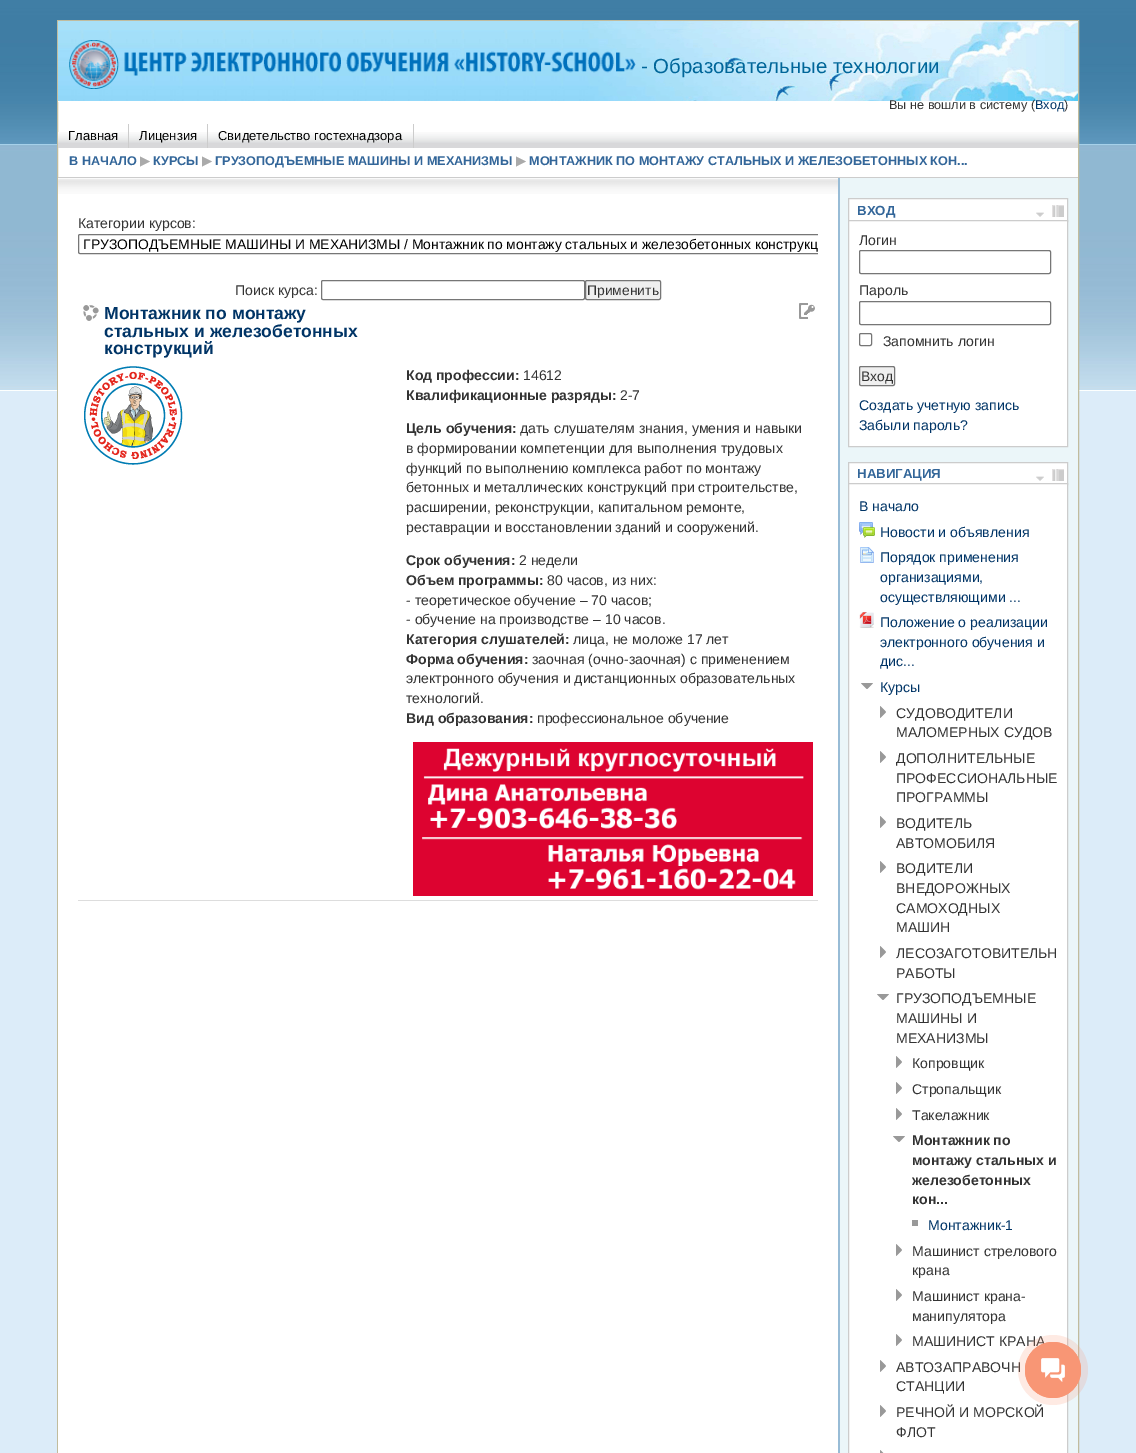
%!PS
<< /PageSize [1136 1453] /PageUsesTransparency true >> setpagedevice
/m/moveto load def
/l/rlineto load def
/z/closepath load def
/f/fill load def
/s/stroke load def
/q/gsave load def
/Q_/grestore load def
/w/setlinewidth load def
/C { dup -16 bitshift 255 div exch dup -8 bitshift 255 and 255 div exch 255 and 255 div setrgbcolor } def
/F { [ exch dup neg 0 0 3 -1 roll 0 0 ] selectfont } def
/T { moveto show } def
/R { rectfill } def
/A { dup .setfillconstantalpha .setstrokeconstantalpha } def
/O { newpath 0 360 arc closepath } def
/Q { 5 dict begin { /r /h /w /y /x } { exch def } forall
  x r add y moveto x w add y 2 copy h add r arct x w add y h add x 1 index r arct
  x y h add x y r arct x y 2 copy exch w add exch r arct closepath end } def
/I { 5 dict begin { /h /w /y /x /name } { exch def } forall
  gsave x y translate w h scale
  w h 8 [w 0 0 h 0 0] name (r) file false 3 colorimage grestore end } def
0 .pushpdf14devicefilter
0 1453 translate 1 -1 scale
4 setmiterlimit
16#FFFFFF C
0 0 1136 1453 R
(1.rgb) 0 0 1136 20 I
16#DCECF9 C
0 391 1136 1062 R
(2.rgb) 0 20 1136 371 I
16#FFFFFF C
58 102 1020 75 R
16#C1BC9D C
57.5 20.5 1021 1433 rectstroke
(3.rgb) 58 21 1020 80 I
16#FFFFFF C
58 101 1020 1 R
(4.rgb) 69 40 567 49 I
/LiberationSans-Regular 20.4 F
16#006699 C
(- Образовательные технологии) 641 73 T
/LiberationSans-Regular 12.65 F
16#333333 C
(Вы не вошли в систему \() 889 109 T
16#003466 C
(Вход) 1035 109 T
16#333333 C
(\)) 1064 109 T
(5.rgb) 58 132 1020 16 I
16#CCCCCC C
128 124 1 24 R
/LiberationSans-Regular 13 F
16#000000 C
(Главная) 68 140 T
16#CCCCCC C
207 124 1 24 R
16#000000 C
(Лицензия) 139 140 T
16#CCCCCC C
413 124 1 24 R
16#000000 C
(Свидетельство гостехнадзора) 218 140 T
/LiberationSans-Bold 12.65 F
16#336699 C
(В НАЧАЛО) 69 165 T
/DejaVuSans-Bold 12.65 F
16#AAAAAA C
(▶) 140 165 T
/LiberationSans-Bold 12.65 F
16#336699 C
(КУРСЫ) 153 165 T
/DejaVuSans-Bold 12.65 F
16#AAAAAA C
(▶) 202 165 T
/LiberationSans-Bold 12.65 F
16#336699 C
(ГРУЗОПОДЪЕМНЫЕ МАШИНЫ И МЕХАНИЗМЫ) 215 165 T
/DejaVuSans-Bold 12.65 F
16#AAAAAA C
(▶) 516 165 T
/LiberationSans-Bold 12.65 F
16#336699 C
(МОНТАЖНИК ПО МОНТАЖУ СТАЛЬНЫХ И ЖЕЛЕЗОБЕТОННЫХ КОН...) 529 165 T
16#EBF6F9 C
840 178 238 1275 R
16#CCCCCC C
58 177 1020 1 R
16#FFFFFF C
58 194 780 1259 R
(6.rgb) 58 178 780 16 I
16#98BCD6 C
838 178 2 1275 R
/LiberationSans-Regular 14.05 F
16#333333 C
(Категории курсов:) 78 228 T
q
78 198 740 752 rectclip
16#767676 C
78.5 234.5 995 19 1.5 Q s
Q_
/LiberationSans-Regular 13.9 F
16#000000 C
83 249 m -.1 0 32 (ГРУЗОПОДЪЕМНЫЕ МАШИНЫ И МЕХАНИЗМЫ / Монтажник по монтажу стальных и железобетонных конструкц) widthshow
/LiberationSans-Regular 14.05 F
16#333333 C
(Поиск курса:) 235 295 T
16#767676 C
321.5 280.5 263 19 1.5 Q s
16#EFEFEF C
585.5 280.5 75 19 1.5 Q q f Q_
16#767676 C
s
/LiberationSans-Regular 13.9 F
16#333333 C
(Применить) 587 295 T
16#DDDDDD C
78 900 740 1 R
(7.rgb) 83 305 16 16 I
/LiberationSans-Bold 17.5 F
16#003466 C
(Монтажник по монтажу) 104 319 T
(стальных и железобетонных) 104 337 T
(конструкций) 104 354 T
(8.rgb) 799 303 16 16 I
(9.rgb) 84 366 99 99 I
/LiberationSans-Bold 14.05 F
16#333333 C
(Код профессии:) 406 380 T
/LiberationSans-Regular 14.05 F
(14612) 523 380 T
/LiberationSans-Bold 14.05 F
(Квалификационные разряды:) 406 400 T
/LiberationSans-Regular 14.05 F
(2-7) 620 400 T
/LiberationSans-Bold 14.05 F
(Цель обучения:) 406 433 T
/LiberationSans-Regular 14.05 F
(дать слушателям знания, умения и навыки) 520 433 T
(в формировании компетенции для выполнения трудовых) 406 453 T
(функций по выполнению комплекса работ по монтажу) 406 473 T
(бетонных и металлических конструкций при строительстве,) 406 492 T
(расширении, реконструкции, капитальном ремонте,) 406 512 T
(реставрации и восстановлении зданий и сооружений.) 406 532 T
/LiberationSans-Bold 14.05 F
(Срок обучения:) 406 565 T
/LiberationSans-Regular 14.05 F
(2 недели) 519 565 T
/LiberationSans-Bold 14.05 F
(Объем программы:) 406 585 T
/LiberationSans-Regular 14.05 F
(80 часов, из них:) 547 585 T
(- теоретическое обучение – 70 часов;) 406 605 T
(- обучение на производстве – 10 часов.) 406 624 T
/LiberationSans-Bold 14.05 F
(Категория слушателей:) 406 644 T
/LiberationSans-Regular 14.05 F
(лица, не моложе 17 лет) 573 644 T
/LiberationSans-Bold 14.05 F
(Форма обучения:) 406 664 T
/LiberationSans-Regular 14.05 F
(заочная \(очно-заочная\) с применением) 532 664 T
(электронного обучения и дистанционных образовательных) 406 683 T
(технологий.) 406 703 T
/LiberationSans-Bold 14.05 F
(Вид образования:) 406 723 T
/LiberationSans-Regular 14.05 F
(профессиональное обучение) 537 723 T
(10.rgb) 413 742 400 154 I
16#FFFFFF C
849 199 218 21 R
16#CCCCCC C
848.5 198.5 219 23 rectstroke
/LiberationSans-Bold 13.25 F
16#336699 C
(ВХОД) 857 215 T
(11.rgb) 1036 212 8 5 I
(12.rgb) 1052 205 12 12 I
16#FFFFFF C
848.5 220.5 m 219 0 l 0 226 l -219 0 l z q f Q_
16#CCCCCC C
s
/LiberationSans-Regular 14.05 F
16#333333 C
(Логин) 859 245 T
16#767676 C
859.5 250.5 191 23 1.5 Q s
16#333333 C
(Пароль) 859 295 T
16#767676 C
859.5 301.5 191 23 1.5 Q s
859.5 333.5 12 12 1.5 Q s
16#333333 C
(Запомнить логин) 883 346 T
16#EFEFEF C
859.5 366.5 35 19 1.5 Q q f Q_
16#767676 C
s
/LiberationSans-Regular 13.9 F
16#333333 C
(Вход) 861 381 T
/LiberationSans-Regular 14.05 F
16#003466 C
(Создать учетную запись) 859 410 T
(Забыли пароль?) 859 430 T
16#FFFFFF C
849 463 218 20 R
16#CCCCCC C
848.5 462.5 219 22 rectstroke
/LiberationSans-Bold 13.25 F
16#336699 C
(НАВИГАЦИЯ) 857 478 T
(11.rgb) 1036 476 8 5 I
(12.rgb) 1052 469 12 12 I
16#FFFFFF C
848.5 483.5 m 219 0 l 0 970 l -219 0 l z q f Q_
16#CCCCCC C
s
/LiberationSans-Regular 14.05 F
16#003466 C
(В начало) 859 511 T
(13.rgb) 859 522 16 16 I
(Новости и объявления) 880 537 T
(14.rgb) 860 547 14 16 I
(Порядок применения) 880 562 T
(организациями,) 880 582 T
(осуществляющими ...) 880 602 T
(15.rgb) 859 612 15 16 I
(Положение о реализации) 880 627 T
(электронного обучения и) 880 647 T
(дис...) 880 666 T
(16.rgb) 861 683 12 6 I
(Курсы) 880 692 T
(17.rgb) 880 706 6 12 I
16#333333 C
(СУДОВОДИТЕЛИ) 896 718 T
(МАЛОМЕРНЫХ СУДОВ) 896 737 T
(17.rgb) 880 751 6 12 I
(ДОПОЛНИТЕЛЬНЫЕ) 896 763 T
(ПРОФЕССИОНАЛЬНЫЕ) 896 783 T
(ПРОГРАММЫ) 896 802 T
(17.rgb) 880 816 6 12 I
(ВОДИТЕЛЬ) 896 828 T
(АВТОМОБИЛЯ) 896 848 T
(17.rgb) 880 861 6 12 I
(ВОДИТЕЛИ) 896 873 T
(ВНЕДОРОЖНЫХ) 896 893 T
(САМОХОДНЫХ) 896 913 T
(МАШИН) 896 932 T
(17.rgb) 880 946 6 12 I
(ЛЕСОЗАГОТОВИТЕЛЬН) 896 958 T
(РАБОТЫ) 896 978 T
(16.rgb) 877 994 12 6 I
(ГРУЗОПОДЪЕМНЫЕ) 896 1003 T
(МАШИНЫ И) 896 1023 T
(МЕХАНИЗМЫ) 896 1043 T
(17.rgb) 896 1056 6 12 I
(Копровщик) 912 1068 T
(17.rgb) 896 1082 6 12 I
(Стропальщик) 912 1094 T
(17.rgb) 896 1108 6 12 I
(Такелажник) 912 1120 T
(16.rgb) 893 1136 12 6 I
/LiberationSans-Bold 14.05 F
(Монтажник по) 912 1145 T
(монтажу стальных и) 912 1165 T
(железобетонных) 912 1185 T
(кон...) 912 1204 T
16#999999 C
912 1220 6 6 R
/LiberationSans-Regular 14.05 F
16#003466 C
(Монтажник-1) 928 1230 T
(17.rgb) 896 1244 6 12 I
16#333333 C
(Машинист стрелового) 912 1256 T
(крана) 912 1275 T
(17.rgb) 896 1289 6 12 I
(Машинист крана-) 912 1301 T
(манипулятора) 912 1321 T
(17.rgb) 896 1334 6 12 I
(МАШИНИСТ КРАНА) 912 1346 T
(17.rgb) 880 1360 6 12 I
(АВТОЗАПРАВОЧН) 896 1372 T
(СТАНЦИИ) 896 1391 T
(17.rgb) 880 1405 6 12 I
(РЕЧНОЙ И МОРСКОЙ) 896 1417 T
(ФЛОТ) 896 1437 T
(18.rgb) 880 1450 4 3 I
0.2 A
16#F89675 C
1053 1370 35 O f
1 A
.8 w
1053 1370 27.6 O s
1053 1370 28 O f
(19.rgb) 1041 1358 24 24 I
.poppdf14devicefilter showpage
